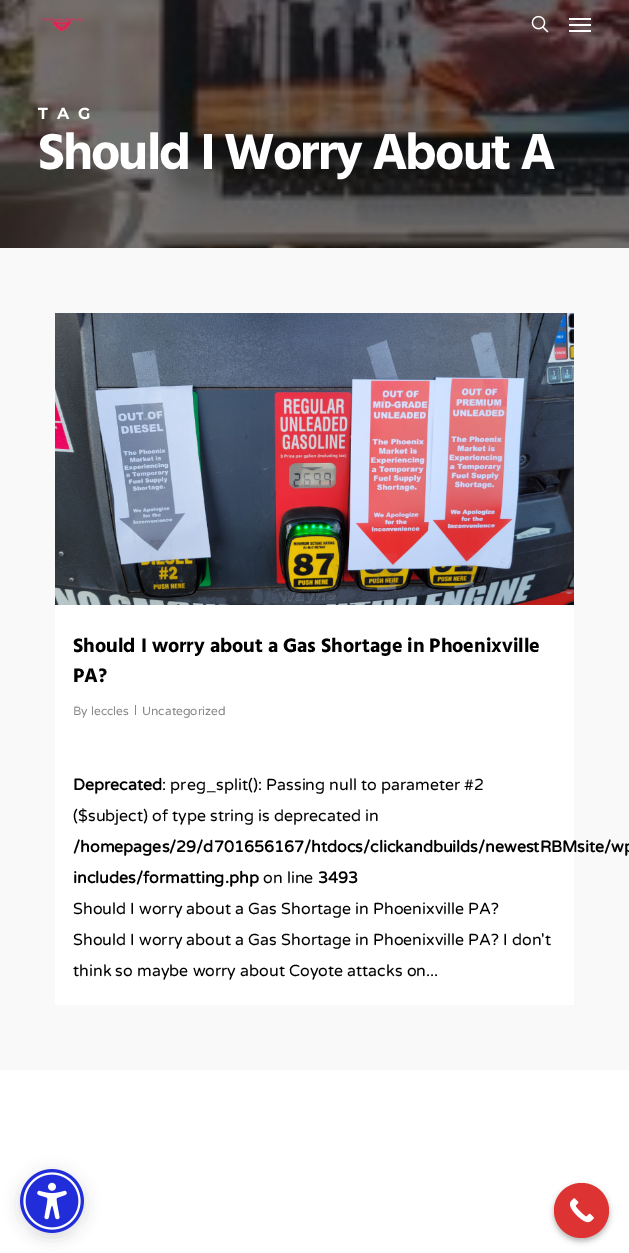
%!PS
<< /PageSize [629 1253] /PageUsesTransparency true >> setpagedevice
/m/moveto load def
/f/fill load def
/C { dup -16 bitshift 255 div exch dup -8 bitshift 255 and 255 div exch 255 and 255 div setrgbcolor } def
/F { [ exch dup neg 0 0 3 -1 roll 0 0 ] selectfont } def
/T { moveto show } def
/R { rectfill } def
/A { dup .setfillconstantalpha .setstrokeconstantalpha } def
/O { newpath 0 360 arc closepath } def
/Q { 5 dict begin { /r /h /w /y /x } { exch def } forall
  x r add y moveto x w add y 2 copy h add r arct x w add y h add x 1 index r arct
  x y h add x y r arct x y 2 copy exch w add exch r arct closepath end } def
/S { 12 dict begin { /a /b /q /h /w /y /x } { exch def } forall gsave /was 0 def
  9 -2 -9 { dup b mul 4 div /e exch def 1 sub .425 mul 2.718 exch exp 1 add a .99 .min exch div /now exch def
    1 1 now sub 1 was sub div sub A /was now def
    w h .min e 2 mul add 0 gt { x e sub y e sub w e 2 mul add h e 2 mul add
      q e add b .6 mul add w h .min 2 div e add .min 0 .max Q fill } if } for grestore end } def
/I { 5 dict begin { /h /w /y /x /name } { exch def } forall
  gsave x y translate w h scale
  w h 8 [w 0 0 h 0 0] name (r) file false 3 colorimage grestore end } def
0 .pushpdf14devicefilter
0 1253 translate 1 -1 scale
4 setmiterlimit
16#F9F9F9 C
0 0 629 1253 R
(3.rgb) 0 0 629 248 I
(1.rgb) 42 17 41 15 I
(2.rgb) 531 15 18 18 I
16#FFFFFF C
569 18 22 2 R
569 30 22 2 R
569 24 22 2 R
/Montserrat-Thin 16 F
38 119 m 9 0 (TAG) ashow
/Hind-Bold 52 F
38 169 m -2 0 (Should I Worry About A) ashow
55 605 519 400 R
(4.rgb) 55 313 519 292 I
/Hind-Bold 20 F
16#000000 C
(Should I worry about a Gas Shortage in Phoenixville) 73 652 T
(PA?) 73 682 T
/VarelaRound-Regular 12 F
16#888888 C
(By leccles) 73 715 T
135 705 1 10 R
(Uncategorized) 142 715 T
/VarelaRound-Bold 16 F
16#000000 C
(Deprecated) 73 790 T
/VarelaRound-Regular 16 F
(: preg_split\(\): Passing null to parameter #2) 162 790 T
(\($subject\) of type string is deprecated in) 73 821 T
/VarelaRound-Bold 16 F
(/homepages/29/d701656167/htdocs/clickandbuilds/newestRBMsite/wp) 73 852 T
(includes/formatting.php) 73 883 T
/VarelaRound-Regular 16 F
(on line) 263 883 T
/VarelaRound-Bold 16 F
(3493) 318 883 T
/VarelaRound-Regular 16 F
(Should I worry about a Gas Shortage in Phoenixville PA?) 73 914 T
(Should I worry about a Gas Shortage in Phoenixville PA? I don't) 73 945 T
(think so maybe worry about Coyote attacks on...) 73 976 T
16#FFFFFF C
0 1070 629 183 R
16#000000 C
20 1173 64 64 32 8 .15 S
(5.rgb) 20 1169 64 64 I
554 1186 55 55 27.5 3 .3 S
16#DD3333 C
581.5 1210.5 27.5 O f
(6.rgb) 569 1198 25 25 I
.poppdf14devicefilter showpage
